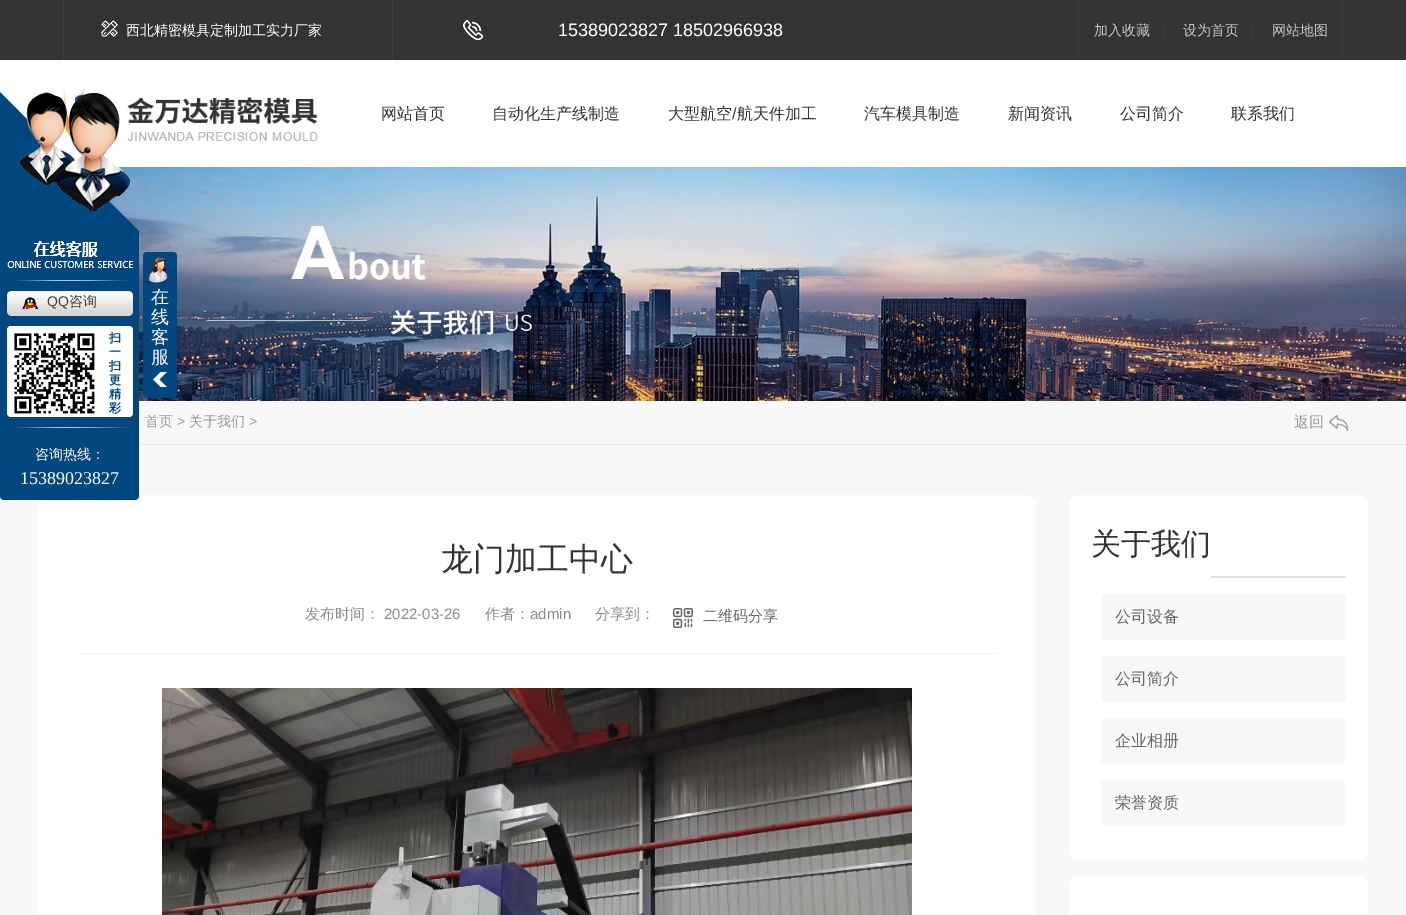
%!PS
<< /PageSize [1406 915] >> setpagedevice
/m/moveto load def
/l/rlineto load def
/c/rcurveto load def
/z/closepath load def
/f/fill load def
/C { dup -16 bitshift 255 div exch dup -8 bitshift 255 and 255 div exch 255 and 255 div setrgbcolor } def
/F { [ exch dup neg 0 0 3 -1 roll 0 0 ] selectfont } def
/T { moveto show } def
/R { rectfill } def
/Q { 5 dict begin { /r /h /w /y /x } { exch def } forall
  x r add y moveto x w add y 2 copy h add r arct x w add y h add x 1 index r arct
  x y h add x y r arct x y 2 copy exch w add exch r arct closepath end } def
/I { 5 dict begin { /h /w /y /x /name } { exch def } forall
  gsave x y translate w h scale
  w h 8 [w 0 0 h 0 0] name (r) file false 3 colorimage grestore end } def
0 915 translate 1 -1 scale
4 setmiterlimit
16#FFFFFF C
0 0 1406 915 R
16#333333 C
0 0 1406 60 R
(1.rgb) 63 0 55 60 I
16#3E3E3E C
392 0 1 60 R
/WenQuanYiZenHei-Medium 14 F
16#FFFFFF C
(西北精密模具定制加工实力厂家) 126 35 T
(2.rgb) 463 20 20 20 I
/LiberationSans-Regular 18 F
(15389023827 18502966938) 558 36 T
16#3E3E3E C
1342 0 1 60 R
1078 0 1 60 R
16#3A3A3A C
1163 19 1 22 R
/WenQuanYiZenHei-Medium 14 F
16#C7C6C8 C
(加入收藏) 1094 35 T
16#3A3A3A C
1252 19 1 22 R
16#C7C6C8 C
(设为首页) 1183 35 T
(网站地图) 1272 35 T
(3.rgb) 63 88 255 53 I
/WenQuanYiZenHei-Medium 16 F
16#333333 C
(网站首页) 381 119 T
(自动化生产线制造) 492 119 T
(大型航空) 668 119 T
/LiberationSans-Regular 16 F
(/) 732 119 T
/WenQuanYiZenHei-Medium 16 F
(航天件加工) 737 119 T
(汽车模具制造) 864 119 T
(新闻资讯) 1008 119 T
(公司简介) 1120 119 T
(联系我们) 1231 119 T
(12.rgb) 109 167 1297 234 I
16#00477F C
0 92 m 139 139 l -139 0 l z f
(4.rgb) 19 92 112 119 I
16#F8F8F8 C
0 401 1406 514 R
16#FFFFFF C
38 495 998 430 10 Q f
16#00477F C
0 231 m 139 0 l 0 265 l 0 2 -2 4 -4 4 c -131 0 l -2 0 -4 -2 -4 -4 c z f
(5.rgb) 7 241 126 27 I
(6.rgb) 12 280 118 1 I
(7.rgb) 7 291 126 25 I
(8.rgb) 22 297 16 12 I
/LiberationSans-Regular 14 F
16#404040 C
(QQ) 47 306 T
/WenQuanYiZenHei-Medium 14 F
(咨询) 69 306 T
16#FFFFFF C
7 326 126 91 4 Q f
(9.rgb) 14 333 81 81 I
/WenQuanYiZenHei-Bold 12 F
16#00477F C
(扫) 109 342 T
(一) 109 356 T
(扫) 109 370 T
(更) 109 384 T
(精) 109 398 T
(彩) 109 412 T
(6.rgb) 12 427 118 1 I
/WenQuanYiZenHei-Medium 14 F
16#FFFFFF C
(咨询热线：) 35 459 T
/LiberationSerif-Regular 18 F
(15389023827) 20 484 T
16#00477F C
143 252 34 146 4 Q f
(10.rgb) 153 372 14 15 I
(11.rgb) 146 257 22 26 I
/WenQuanYiZenHei-Medium 18 F
16#FFFFFF C
(在) 151 303 T
(线) 151 323 T
(客) 151 343 T
(服) 151 363 T
16#E6E6E6 C
139 444 1267 1 R
/WenQuanYiZenHei-Medium 14 F
16#999999 C
(首页) 145 426 T
/LiberationSans-Regular 14 F
(>) 177 426 T
/WenQuanYiZenHei-Medium 14 F
(关于我们) 189 426 T
/LiberationSans-Regular 14 F
(>) 249 426 T
/WenQuanYiZenHei-Medium 15 F
(返回) 1294 427 T
(13.rgb) 1329 415 19 16 I
/WenQuanYiZenHei-Medium 32 F
16#333333 C
(龙门加工中心) 441 570 T
16#F2F0F0 C
78 653 918 1 R
/WenQuanYiZenHei-Medium 15 F
16#8C8C8C C
(发布时间：) 305 619 T
/LiberationSans-Regular 15 F
(2022-03-26) 384 619 T
/WenQuanYiZenHei-Medium 15 F
(作者：) 485 619 T
/LiberationSans-Regular 15 F
(admin) 530 619 T
/WenQuanYiZenHei-Medium 15 F
(分享到：) 595 619 T
(14.rgb) 673 608 20 20 I
16#666666 C
(二维码分享) 703 621 T
(15.rgb) 162 688 750 227 I
16#FFFFFF C
1069 495 299 365 10 Q f
16#DEDEDE C
1211 576 135 2 R
/WenQuanYiZenHei-Medium 30 F
16#333333 C
(关于我们) 1091 554 T
16#F8F8F8 C
1101 594 m 240 0 l 3 0 5 2 5 5 c 0 36 l 0 3 -2 5 -5 5 c -240 0 l z f
/WenQuanYiZenHei-Medium 16 F
16#666666 C
(公司设备) 1115 622 T
16#F8F8F8 C
1101 656 m 240 0 l 3 0 5 2 5 5 c 0 36 l 0 3 -2 5 -5 5 c -240 0 l z f
16#666666 C
(公司简介) 1115 684 T
16#F8F8F8 C
1101 718 m 240 0 l 3 0 5 2 5 5 c 0 36 l 0 3 -2 5 -5 5 c -240 0 l z f
16#666666 C
(企业相册) 1115 746 T
16#F8F8F8 C
1101 780 m 240 0 l 3 0 5 2 5 5 c 0 36 l 0 3 -2 5 -5 5 c -240 0 l z f
16#666666 C
(荣誉资质) 1115 808 T
16#FFFFFF C
1069 876 299 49 10 Q f
showpage
